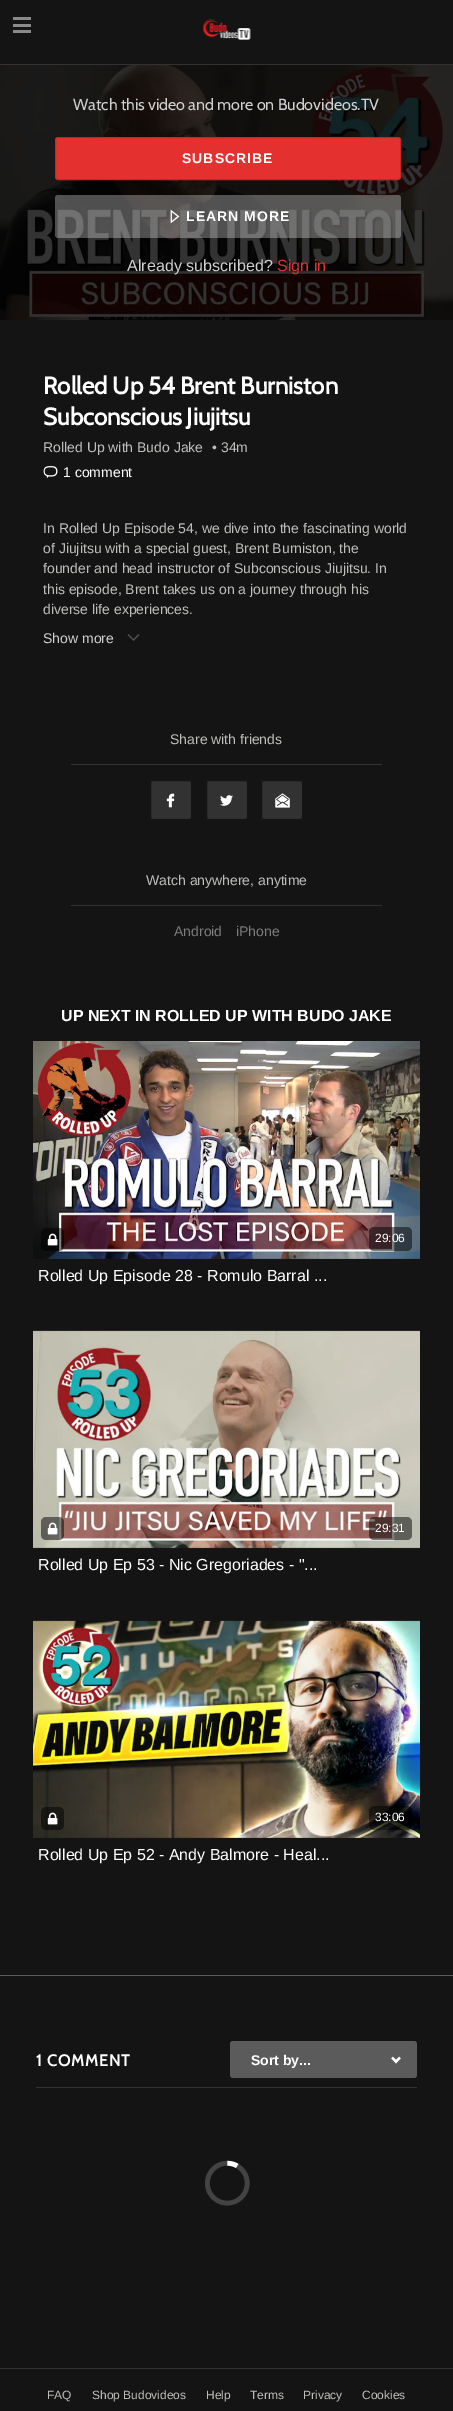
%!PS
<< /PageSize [453 2411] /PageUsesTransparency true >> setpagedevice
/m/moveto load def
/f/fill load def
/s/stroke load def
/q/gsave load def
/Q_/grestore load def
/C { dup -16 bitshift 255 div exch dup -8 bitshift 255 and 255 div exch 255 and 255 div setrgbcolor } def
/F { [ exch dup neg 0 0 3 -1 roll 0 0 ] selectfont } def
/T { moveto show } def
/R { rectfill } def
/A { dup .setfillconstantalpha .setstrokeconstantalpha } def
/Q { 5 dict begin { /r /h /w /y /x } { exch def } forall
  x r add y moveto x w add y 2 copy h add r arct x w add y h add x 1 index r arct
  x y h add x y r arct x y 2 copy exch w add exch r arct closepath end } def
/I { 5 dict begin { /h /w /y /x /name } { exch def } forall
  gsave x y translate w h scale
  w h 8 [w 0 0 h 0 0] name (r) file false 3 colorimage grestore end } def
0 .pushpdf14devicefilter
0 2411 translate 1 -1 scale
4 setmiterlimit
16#141414 C
0 0 453 2411 R
16#323232 C
0 64 453 1 R
16#8A8A8A C
13 17 18 3 R
13 24 18 3 R
13 30 18 3 R
(1.rgb) 202 19 49 21 I
(2.rgb) 0 65 453 255 I
/Cabin-Regular 16.1 F
16#D0D0D0 C
73 110 m -.5 0 32 (Watch this video and more on Budovideos.TV) widthshow
16#E4312F C
55.5 137.5 345 42 2.5 Q q f Q_
16#C22A28 C
s
/LiberationSans-Bold 14 F
16#FFFFFF C
182 163 m 1 0 (SUBSCRIBE) ashow
0.3 A
55 195 346 43 3 Q f
1 A
(3.rgb) 170 209 10 15 I
186 221 m 1 0 (LEARN MORE) ashow
/LiberationSans-Regular 16.1 F
16#D0D0D0 C
(Already subscribed?) 127 271 T
16#E4312F C
(Sign in) 277 271 T
16#5B5B5B C
0 1975 453 1 R
/Cabin-Bold 24 F
16#FFFFFF C
43 394 m -.5 0 32 (Rolled Up 54 Brent Burniston) widthshow
43 425 m -1 0 32 (Subconscious Jiujitsu) widthshow
/LiberationSans-Regular 14 F
16#BEBEBB C
(Rolled Up with Budo Jake) 43 452 T
(• 34m) 212 452 T
(4.rgb) 43 466 15 13 I
16#FFFFFF C
(1 comment) 63 477 T
16#BEBEBB C
(In Rolled Up Episode 54, we dive into the fascinating world) 43 533 T
(of Jiujitsu with a special guest, Brent Burniston, the) 43 553 T
(founder and head instructor of Subconscious Jiujitsu. In) 43 573 T
(this episode, Brent takes us on a journey through his) 43 594 T
(diverse life experiences.) 43 614 T
16#D0D0D0 C
(Show more) 43 643 T
(5.rgb) 127 634 13 7 I
16#323232 C
71 764 311 1 R
16#BEBEBB C
(Share with friends) 170 744 T
16#323232 C
150 780 42 40 3 Q f
(6.rgb) 166 793 9 15 I
16#141414 C
150.5 780.5 41 39 2.5 Q s
16#323232 C
206 780 42 40 3 Q f
(7.rgb) 220 795 13 11 I
16#141414 C
206.5 780.5 41 39 2.5 Q s
16#323232 C
261 780 42 40 3 Q f
(8.rgb) 275 793 15 15 I
16#141414 C
261.5 780.5 41 39 2.5 Q s
16#323232 C
71 905 311 1 R
16#BEBEBB C
(Watch anywhere, anytime) 146 885 T
16#7C7C7C C
(Android) 174 936 T
(iPhone) 236 936 T
/LiberationSans-Bold 16 F
16#FFFFFF C
(UP NEXT IN ROLLED UP WITH BUDO JAKE) 61 1021 T
(9.rgb) 33 1041 387 218 I
0.5 A
16#000000 C
41 1228 23 23 5 Q f
1 A
(10.rgb) 47 1233 11 13 I
0.5 A
369 1227 43 24 5 Q f
/LiberationSans-Regular 12 F
1 A
16#FFFFFF C
(29:06) 375 1242 T
/LiberationSans-Regular 16 F
(Rolled Up Episode 28 - Romulo Barral ...) 38 1281 T
(11.rgb) 33 1330 387 219 I
0.5 A
16#000000 C
41 1517 23 23 5 Q f
1 A
(12.rgb) 47 1522 11 13 I
0.5 A
369 1517 43 23 5 Q f
/LiberationSans-Regular 12 F
1 A
16#FFFFFF C
(29:31) 375 1532 T
/LiberationSans-Regular 16 F
(Rolled Up Ep 53 - Nic Gregoriades - "...) 38 1570 T
(13.rgb) 33 1620 387 218 I
0.5 A
16#000000 C
41 1807 23 23 5 Q f
1 A
(14.rgb) 47 1812 11 13 I
0.5 A
369 1806 43 24 5 Q f
/LiberationSans-Regular 12 F
1 A
16#FFFFFF C
(33:06) 375 1821 T
/LiberationSans-Regular 16 F
(Rolled Up Ep 52 - Andy Balmore - Heal...) 38 1860 T
16#323232 C
36 2087 381 1 R
/Cabin-Bold 16 F
16#FFFFFF C
36 2066 m 1 0 (1 COMMENT) ashow
16#5B5B5B C
230 2041 187 37 3 Q f
(15.rgb) 391 2056 10 8 I
/LiberationSans-Bold 14 F
16#FFFFFF C
(Sort by...) 251 2065 T
(16.rgb) 205 2160 45 46 I
16#323232 C
0 2368 453 1 R
/LiberationSans-Regular 12 F
16#BEBEBB C
(FAQ) 47 2399 T
(Shop Budovideos) 92 2399 T
(Help) 206 2399 T
(Terms) 250 2399 T
(Privacy) 303 2399 T
(Cookies) 362 2399 T
.poppdf14devicefilter showpage
